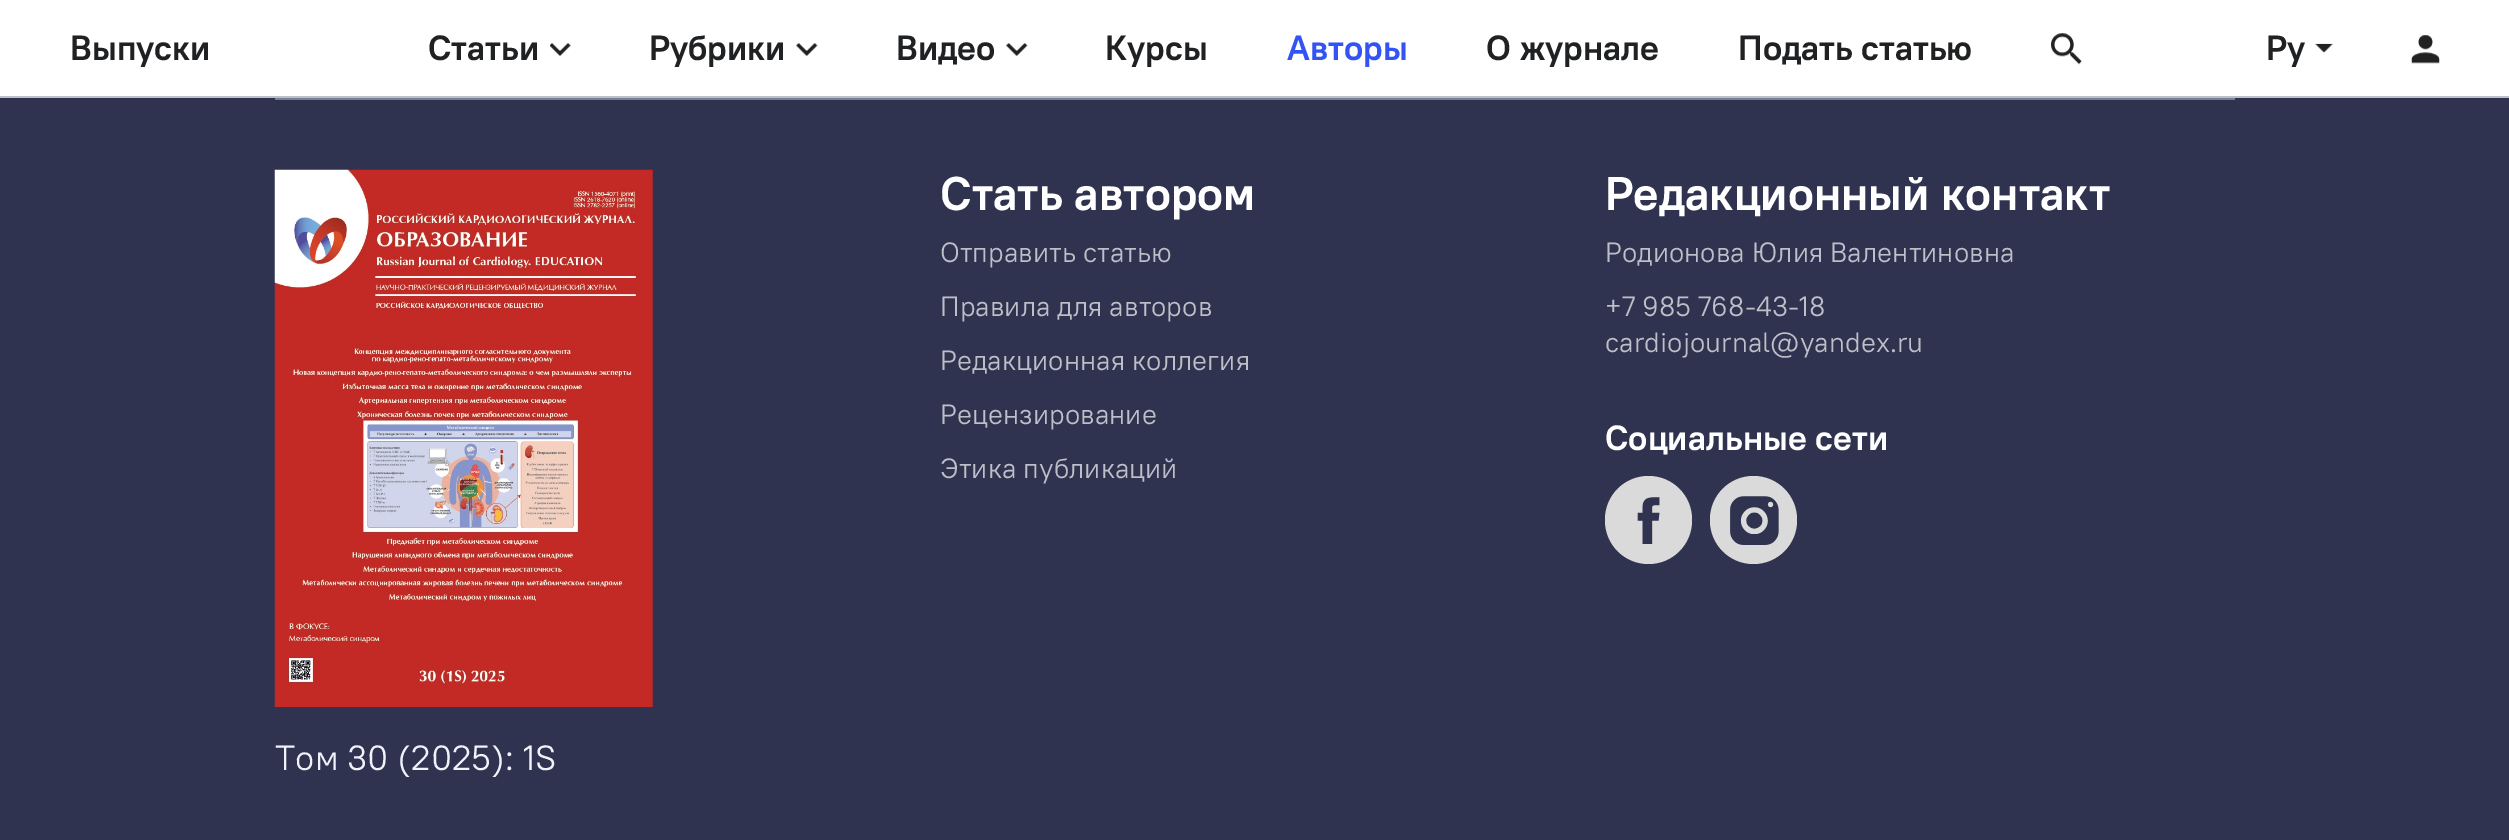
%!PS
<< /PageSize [2509 840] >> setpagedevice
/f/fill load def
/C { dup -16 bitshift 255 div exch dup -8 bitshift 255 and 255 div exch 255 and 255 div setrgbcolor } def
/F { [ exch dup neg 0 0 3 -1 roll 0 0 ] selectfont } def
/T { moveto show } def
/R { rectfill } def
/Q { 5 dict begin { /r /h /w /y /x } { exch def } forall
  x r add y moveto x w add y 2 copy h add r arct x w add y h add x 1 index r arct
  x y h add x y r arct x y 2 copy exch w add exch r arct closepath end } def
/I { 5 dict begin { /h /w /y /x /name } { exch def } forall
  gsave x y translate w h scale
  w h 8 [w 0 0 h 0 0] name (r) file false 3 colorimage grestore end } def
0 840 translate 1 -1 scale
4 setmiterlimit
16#30334F C
0 0 2509 840 R
16#FFFFFF C
0 0 2509 96 R
16#BCC0C8 C
0 96 2509 2 R
/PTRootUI-Bold 35 F
16#202123 C
(Выпуски) 70 60 T
(Статьи) 428 60 T
(1.rgb) 550 43 21 13 I
(Рубрики) 649 60 T
(2.rgb) 796 43 22 13 I
(Видео) 896 60 T
(2.rgb) 1006 43 22 13 I
(Курсы) 1105 60 T
16#3354F4 C
(Авторы) 1287 60 T
16#202123 C
(О журнале) 1486 60 T
(Подать статью) 1738 60 T
(3.rgb) 2051 33 31 32 I
(Ру) 2266 60 T
(4.rgb) 2315 43 18 10 I
(5.rgb) 2411 34 29 30 I
16#768095 C
275 98 1960 2 R
/PTRootUI-Bold 47.25 F
16#FFFFFF C
(Стать автором) 940 210 T
/PTRootUI-Regular 28 F
16#BCC0C8 C
(Отправить статью) 940 262 T
(Правила для авторов) 940 316 T
(Редакционная коллегия) 940 370 T
(Рецензирование) 940 424 T
(Этика публикаций) 940 478 T
/PTRootUI-Bold 47.25 F
16#FFFFFF C
(Редакционный контакт) 1605 210 T
/PTRootUI-Regular 28 F
16#BCC0C8 C
(Родионова Юлия Валентиновна) 1605 262 T
(+7 985 768-43-18) 1605 316 T
(cardiojournal@yandex.ru) 1605 352 T
/PTRootUI-Bold 35 F
16#FFFFFF C
(Социальные сети) 1605 450 T
16#DADADA C
1605 476 87 88 43.5 Q f
(6.rgb) 1637 497 23 47 I
1710 476 87 88 43.5 Q f
(7.rgb) 1730 496 49 49 I
(8.rgb) 274 169 379 538 I
/PTRootUI-Regular 35 F
16#EFF3FA C
(Том 30 \(2025\): 1S) 275 770 T
showpage
